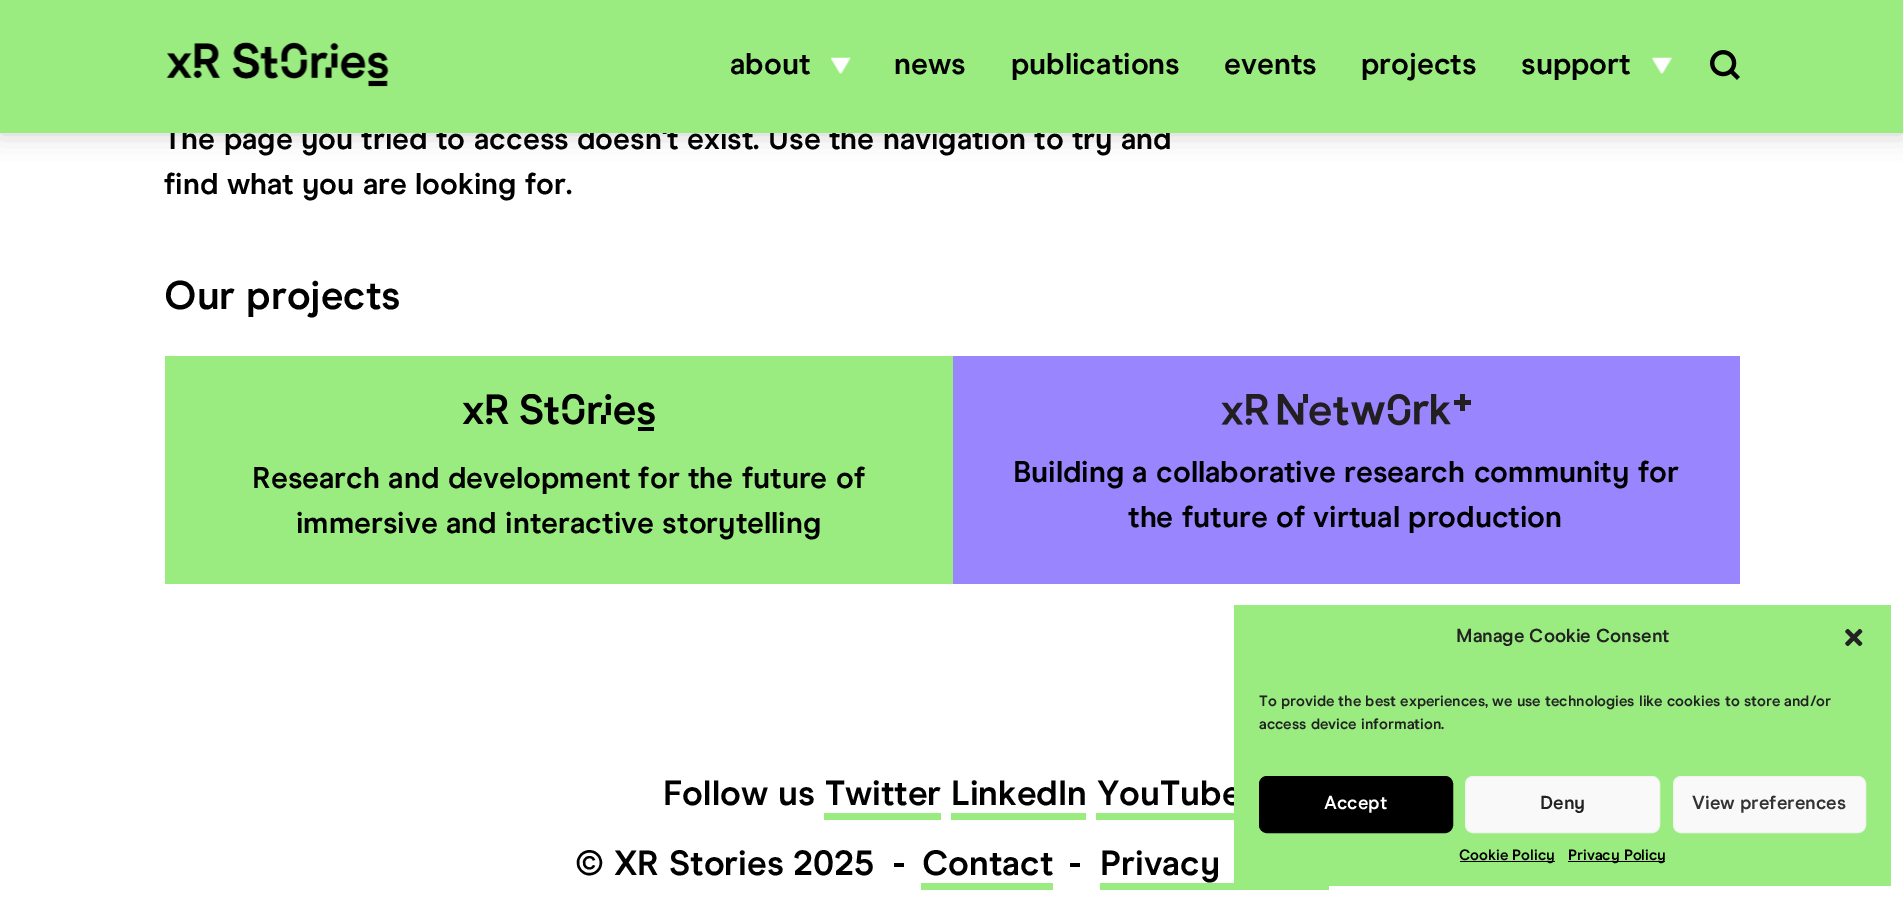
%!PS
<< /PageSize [1903 898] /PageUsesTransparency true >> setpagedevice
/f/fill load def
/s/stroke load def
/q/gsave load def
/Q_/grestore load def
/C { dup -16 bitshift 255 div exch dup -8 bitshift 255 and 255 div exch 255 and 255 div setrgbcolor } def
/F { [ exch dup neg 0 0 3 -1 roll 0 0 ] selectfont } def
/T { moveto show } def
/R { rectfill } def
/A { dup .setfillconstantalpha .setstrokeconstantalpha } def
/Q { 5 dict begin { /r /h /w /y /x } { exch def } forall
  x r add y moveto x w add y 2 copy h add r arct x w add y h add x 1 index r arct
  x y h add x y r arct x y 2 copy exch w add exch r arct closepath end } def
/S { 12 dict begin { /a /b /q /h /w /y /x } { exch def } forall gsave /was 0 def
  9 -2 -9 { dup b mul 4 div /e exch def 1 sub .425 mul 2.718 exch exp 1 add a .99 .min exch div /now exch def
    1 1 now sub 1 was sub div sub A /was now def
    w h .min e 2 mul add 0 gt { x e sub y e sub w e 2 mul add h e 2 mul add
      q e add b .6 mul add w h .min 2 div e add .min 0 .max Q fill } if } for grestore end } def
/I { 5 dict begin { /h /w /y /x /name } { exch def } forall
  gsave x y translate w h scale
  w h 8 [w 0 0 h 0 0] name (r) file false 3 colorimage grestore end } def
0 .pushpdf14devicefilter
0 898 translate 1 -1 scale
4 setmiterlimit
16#FFFFFF C
0 0 1903 898 R
16#000000 C
0 0 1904 133 0 12.5 .2 S
/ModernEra-Bold 30 F
(The page you tried to access doesn't exist. Use the navigation to try and) 164 149 T
16#9AEC80 C
0 0 1903 133 R
(1.rgb) 166 42 223 45 I
16#000000 C
(about) 730 74 T
(2.rgb) 831 57 20 17 I
(news) 894 74 T
(publications) 1011 74 T
(events) 1224 74 T
(projects) 1361 74 T
(support) 1521 74 T
(3.rgb) 1652 57 20 17 I
(4.rgb) 1710 50 30 30 I
(find what you are looking for.) 164 194 T
/ModernEra-Bold 40 F
(Our projects) 164 309 T
16#9AEC80 C
165 356 788 228 R
(5.rgb) 462 394 193 37 I
/ModernEra-Bold 30 F
16#000000 C
(Research and development for the future of) 252 488 T
(immersive and interactive storytelling) 296 533 T
16#9986FF C
953 356 787 228 R
(6.rgb) 1221 394 250 32 I
16#000000 C
(Building a collaborative research community for) 1013 482 T
(the future of virtual production) 1128 527 T
/ModernEra-Bold 35 F
(Follow us Twitter LinkedIn YouTube) 663 805 T
16#9AEC80 C
824 813 117 7 R
951 813 135 7 R
1096 813 145 7 R
16#000000 C
(© XR Stories 2025) 575 875 T
(Contact) 922 875 T
1070 863 10 4 R
894 863 10 4 R
16#9AEC80 C
921 883 132 7 R
16#000000 C
(Privacy) 1100 875 T
16#9AEC80 C
1100 883 229 7 R
1234 605 657 281 R
/ModernEra-Bold 18.75 F
16#222222 C
(Manage Cookie Consent) 1456 642 T
(7.rgb) 1845 628 18 19 I
/ModernEra-Bold 15 F
(To provide the best experiences, we use technologies like cookies to store and/or) 1259 706 T
(access device information.) 1259 729 T
16#000000 C
1259.5 776.5 193 56 7.5 Q q f Q_
s
/ModernEra-Bold 18.75 F
16#FFFFFF C
(Accept) 1324 809 T
16#F9F9F9 C
1465.5 776.5 194 56 7.5 Q q f Q_
16#F2F2F2 C
s
16#222222 C
(Deny) 1540 809 T
16#F9F9F9 C
1673.5 776.5 192 56 7.5 Q q f Q_
16#F2F2F2 C
s
16#333333 C
(View preferences) 1692 809 T
16#000000 C
1460 861 95 1 R
/ModernEra-Bold 15 F
(Cookie Policy) 1459 860 T
1568 861 97 1 R
(Privacy Policy) 1568 860 T
.poppdf14devicefilter showpage
